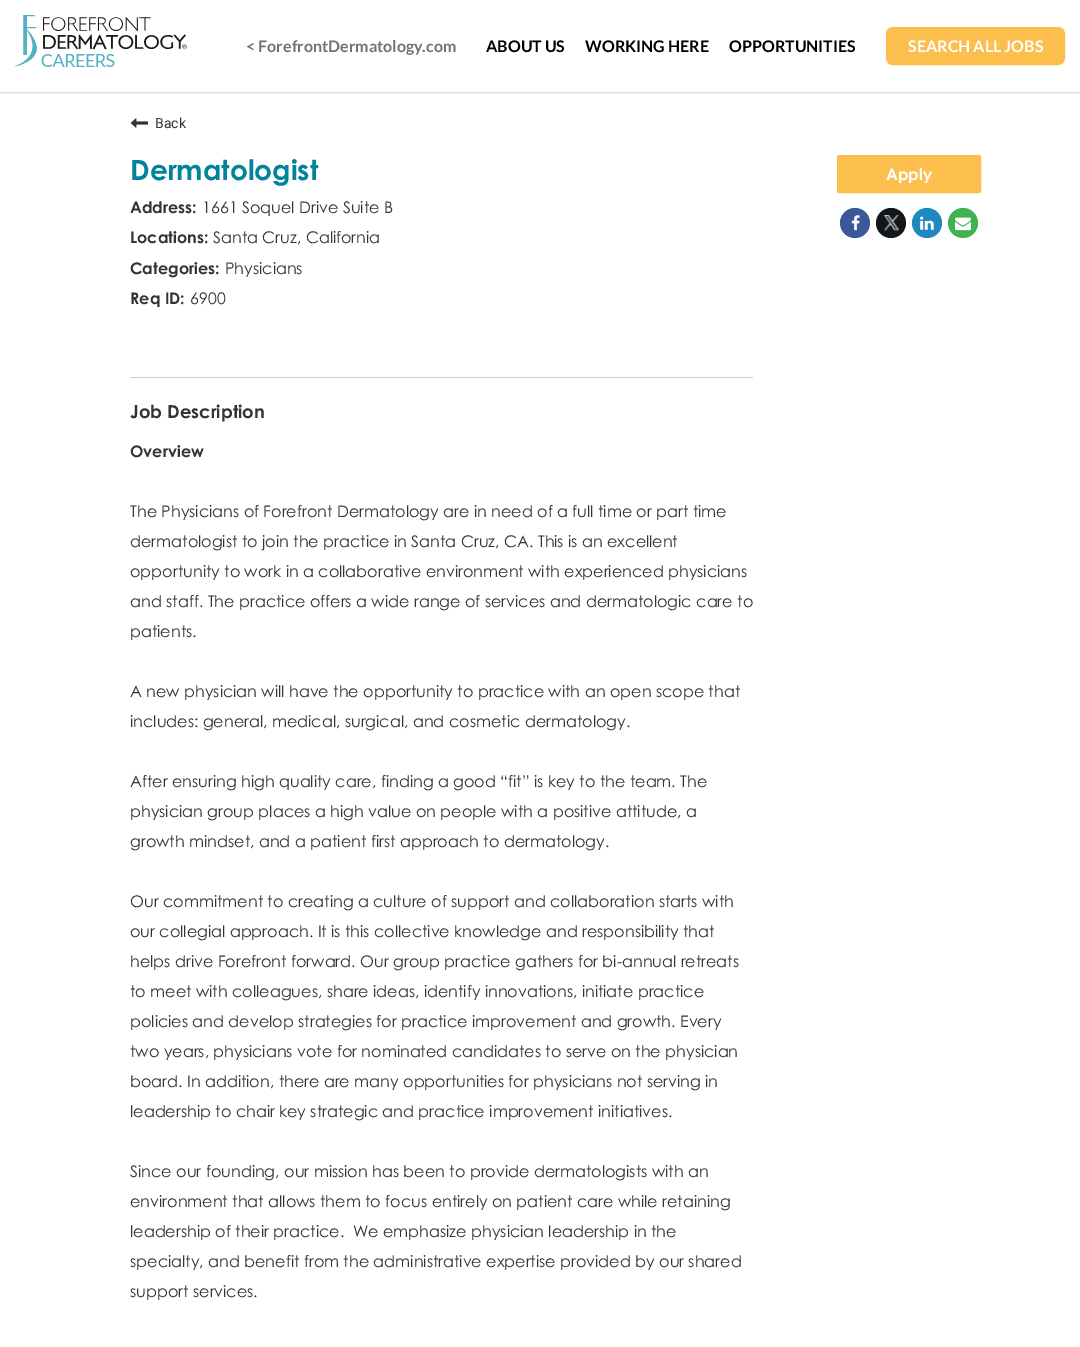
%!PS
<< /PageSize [1080 1347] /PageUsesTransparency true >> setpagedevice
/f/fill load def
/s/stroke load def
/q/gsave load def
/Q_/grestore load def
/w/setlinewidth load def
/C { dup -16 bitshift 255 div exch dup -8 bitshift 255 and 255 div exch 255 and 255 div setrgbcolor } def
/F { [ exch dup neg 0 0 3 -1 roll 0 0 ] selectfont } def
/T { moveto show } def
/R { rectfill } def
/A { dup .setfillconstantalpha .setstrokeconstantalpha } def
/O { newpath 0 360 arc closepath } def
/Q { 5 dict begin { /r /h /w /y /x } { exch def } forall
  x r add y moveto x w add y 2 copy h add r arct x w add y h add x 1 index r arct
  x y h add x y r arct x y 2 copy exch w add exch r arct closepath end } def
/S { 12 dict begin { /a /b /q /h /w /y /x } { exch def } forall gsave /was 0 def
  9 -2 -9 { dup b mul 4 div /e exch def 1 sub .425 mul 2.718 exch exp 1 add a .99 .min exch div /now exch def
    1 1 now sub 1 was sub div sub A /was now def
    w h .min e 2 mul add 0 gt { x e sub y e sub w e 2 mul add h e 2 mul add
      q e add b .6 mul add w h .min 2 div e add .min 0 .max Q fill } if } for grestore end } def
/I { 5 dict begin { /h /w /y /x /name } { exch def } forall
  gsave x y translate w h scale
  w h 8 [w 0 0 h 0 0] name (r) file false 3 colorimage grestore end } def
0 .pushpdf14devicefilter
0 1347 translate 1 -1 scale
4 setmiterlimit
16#FFFFFF C
0 0 1080 1347 R
q
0 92 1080 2 rectclip
16#000000 C
0 0 1080 92 0 1.5 .3 S
Q_
(1.rgb) 15 15 172 52 I
/Lato-Bold 16 F
16#727272 C
(< ForefrontDermatology.com) 246 52 T
16#000000 C
(ABOUT US) 486 52 T
(WORKING HERE) 585 52 T
(OPPORTUNITIES) 729 52 T
16#FCBE4D C
887 28 177 36 6 Q q f Q_
2 w
s
16#FFFFFF C
(SEARCH ALL JOBS) 908 52 T
(2.rgb) 130 118 18 10 I
/Roboto-Regular 14 F
16#333333 C
(Back) 155 128 T
16#C5D0DD C
130 377 623 1 R
/CenturyGothic-Bold 28 F
16#00839B C
(Dermatologist) 130 180 T
/CenturyGothic-Bold 16 F
16#333333 C
(Address:) 130 213 T
/CenturyGothic-Regular 16 F
(1661 Soquel Drive Suite B) 202 213 T
/CenturyGothic-Bold 16 F
(Locations:) 130 243 T
/CenturyGothic-Regular 16 F
(Santa Cruz, California) 213 243 T
/CenturyGothic-Bold 16 F
(Categories:) 130 274 T
/CenturyGothic-Regular 16 F
(Physicians) 225 274 T
/CenturyGothic-Bold 16 F
(Req ID:) 130 304 T
/CenturyGothic-Regular 16 F
(6900) 190 304 T
/CenturyGothic-Bold 18 F
(Job Description) 130 418 T
/CenturyGothic-Bold 16 F
(Overview) 130 457 T
/CenturyGothic-Regular 16 F
(The Physicians of Forefront Dermatology are in need of a full time or part time) 130 517 T
(dermatologist to join the practice in Santa Cruz, CA. This is an excellent) 130 547 T
(opportunity to work in a collaborative environment with experienced physicians) 130 577 T
(and staff. The practice offers a wide range of services and dermatologic care to) 130 607 T
(patients.) 130 637 T
(A new physician will have the opportunity to practice with an open scope that) 130 697 T
(includes: general, medical, surgical, and cosmetic dermatology.) 130 727 T
(After ensuring high quality care, finding a good “fit” is key to the team. The) 130 787 T
(physician group places a high value on people with a positive attitude, a) 130 817 T
(growth mindset, and a patient first approach to dermatology.) 130 847 T
(Our commitment to creating a culture of support and collaboration starts with) 130 907 T
(our collegial approach. It is this collective knowledge and responsibility that) 130 937 T
(helps drive Forefront forward. Our group practice gathers for bi-annual retreats) 130 967 T
(to meet with colleagues, share ideas, identify innovations, initiate practice) 130 997 T
(policies and develop strategies for practice improvement and growth. Every) 130 1027 T
(two years, physicians vote for nominated candidates to serve on the physician) 130 1057 T
(board. In addition, there are many opportunities for physicians not serving in) 130 1087 T
(leadership to chair key strategic and practice improvement initiatives.) 130 1117 T
(Since our founding, our mission has been to provide dermatologists with an) 130 1177 T
(environment that allows them to focus entirely on patient care while retaining) 130 1207 T
(leadership of their practice.  We emphasize physician leadership in the) 130 1237 T
(specialty, and benefit from the administrative expertise provided by our shared) 130 1267 T
(support services.) 130 1297 T
16#FCBE4D C
838 156 142 36 1 Q q f Q_
s
/CenturyGothic-Bold 16 F
16#FFFFFF C
(Apply) 886 180 T
16#3B5998 C
855 223 15 O f
(3.rgb) 851 215 9 16 I
16#14171A C
891 223 15 O f
(4.rgb) 884 215 15 16 I
16#1F88BE C
927 223 15 O f
(5.rgb) 920 216 14 14 I
16#3FB34F C
963 223 15 O f
(6.rgb) 955 217 16 14 I
.poppdf14devicefilter showpage
